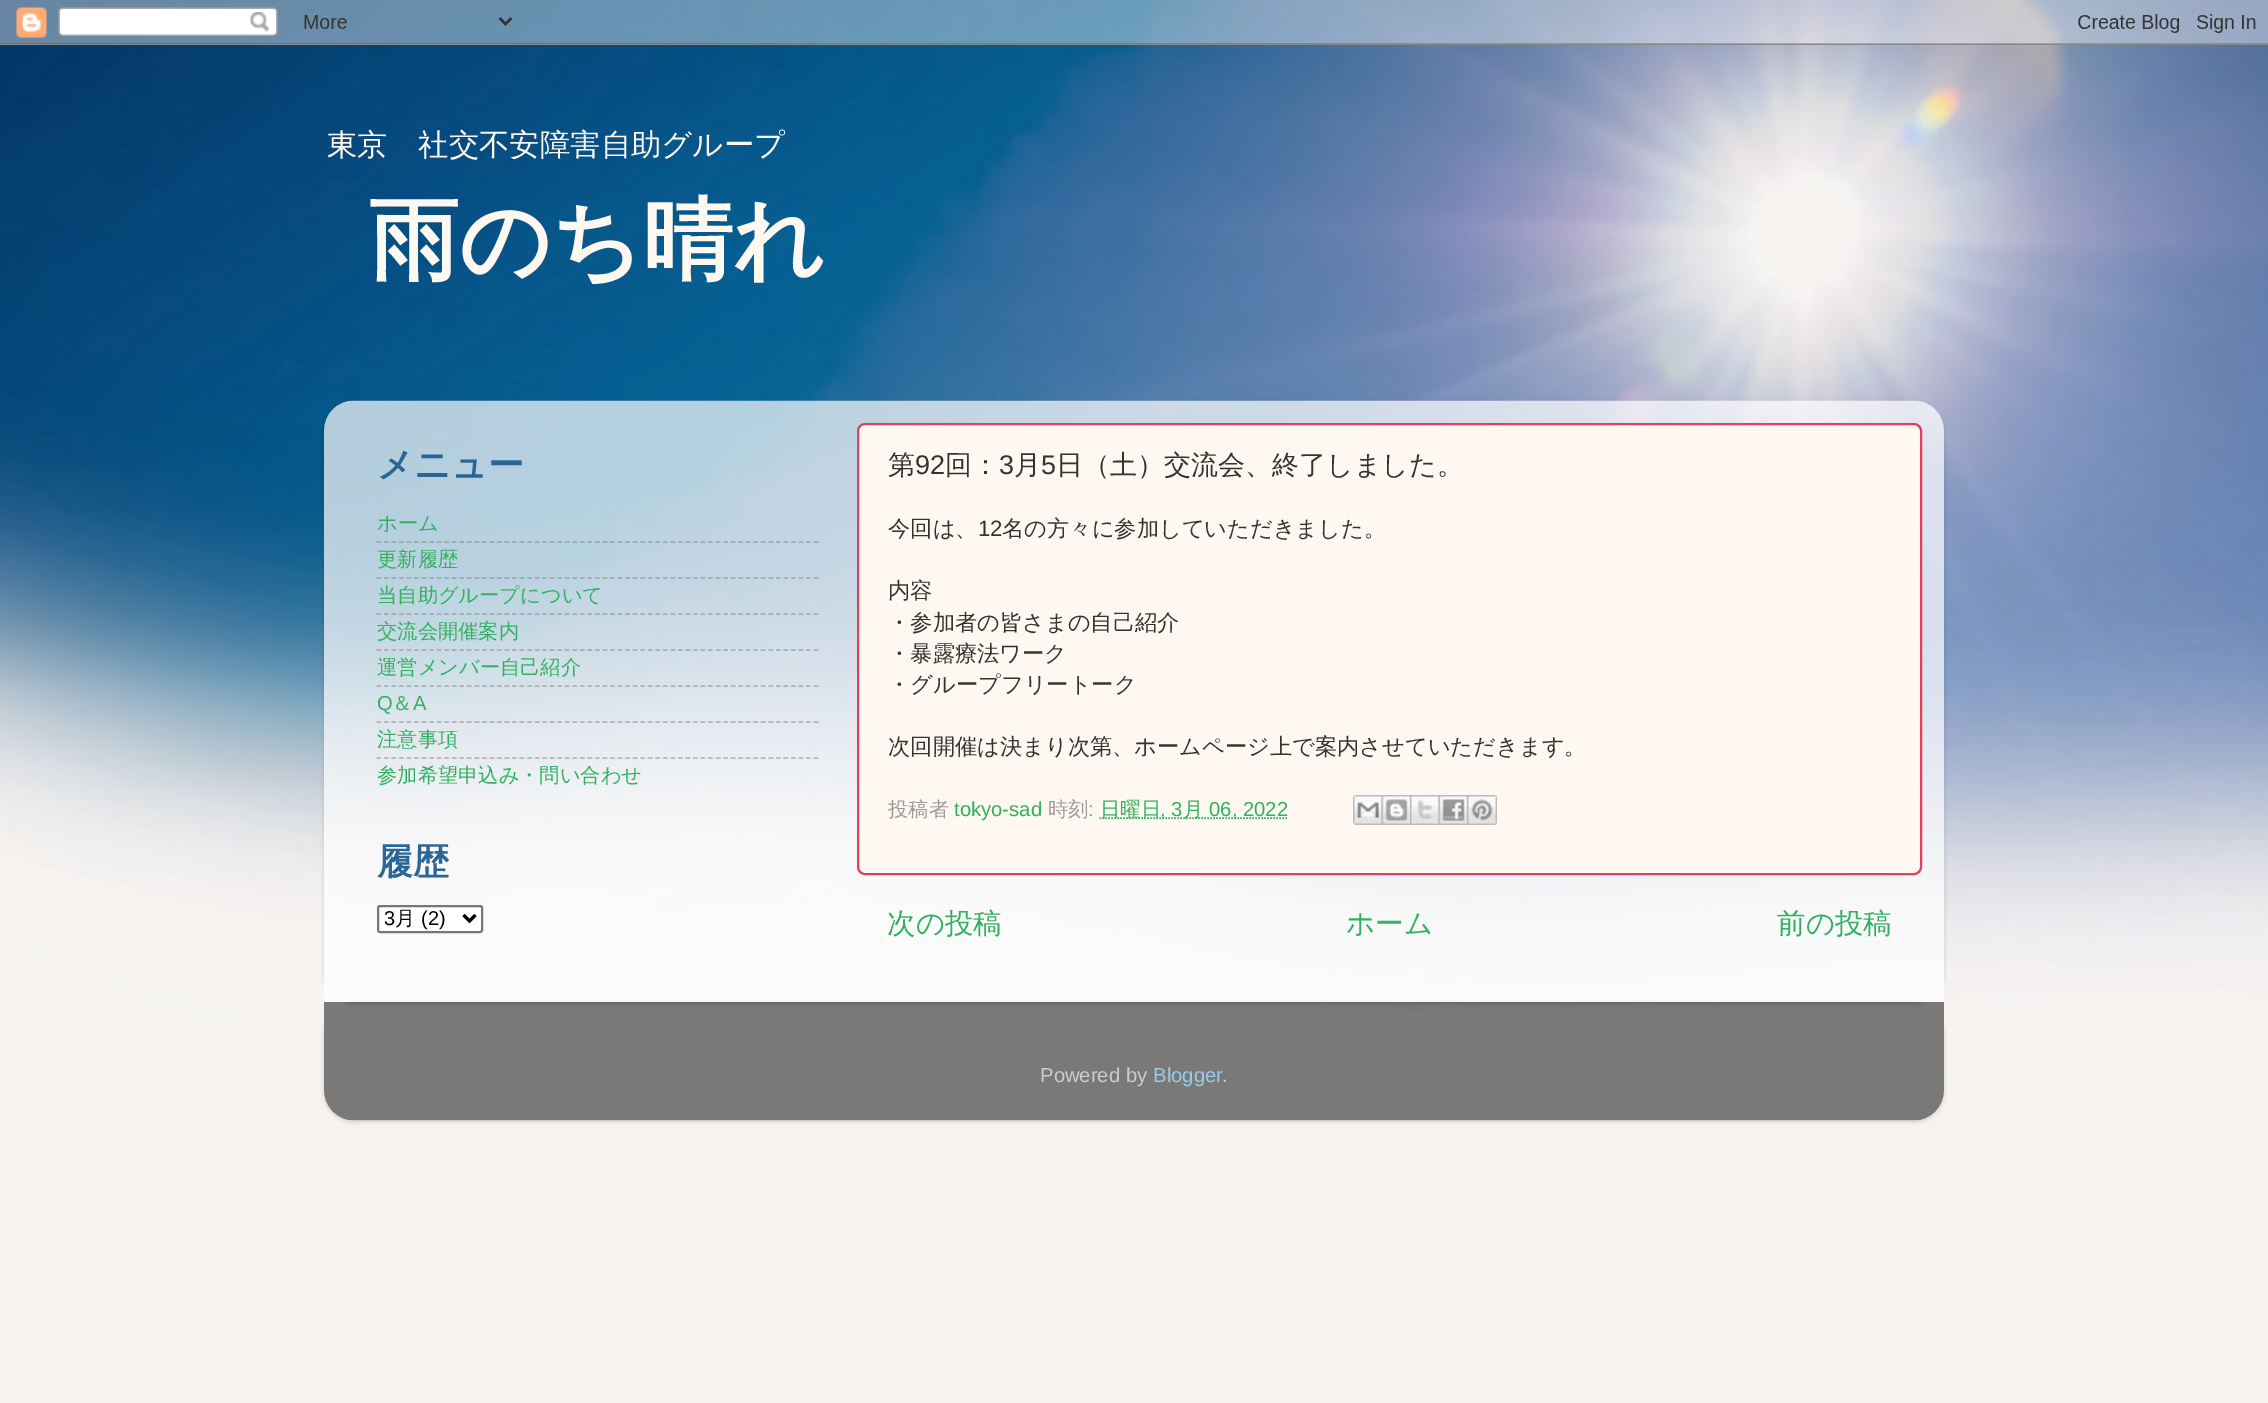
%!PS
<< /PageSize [2268 1403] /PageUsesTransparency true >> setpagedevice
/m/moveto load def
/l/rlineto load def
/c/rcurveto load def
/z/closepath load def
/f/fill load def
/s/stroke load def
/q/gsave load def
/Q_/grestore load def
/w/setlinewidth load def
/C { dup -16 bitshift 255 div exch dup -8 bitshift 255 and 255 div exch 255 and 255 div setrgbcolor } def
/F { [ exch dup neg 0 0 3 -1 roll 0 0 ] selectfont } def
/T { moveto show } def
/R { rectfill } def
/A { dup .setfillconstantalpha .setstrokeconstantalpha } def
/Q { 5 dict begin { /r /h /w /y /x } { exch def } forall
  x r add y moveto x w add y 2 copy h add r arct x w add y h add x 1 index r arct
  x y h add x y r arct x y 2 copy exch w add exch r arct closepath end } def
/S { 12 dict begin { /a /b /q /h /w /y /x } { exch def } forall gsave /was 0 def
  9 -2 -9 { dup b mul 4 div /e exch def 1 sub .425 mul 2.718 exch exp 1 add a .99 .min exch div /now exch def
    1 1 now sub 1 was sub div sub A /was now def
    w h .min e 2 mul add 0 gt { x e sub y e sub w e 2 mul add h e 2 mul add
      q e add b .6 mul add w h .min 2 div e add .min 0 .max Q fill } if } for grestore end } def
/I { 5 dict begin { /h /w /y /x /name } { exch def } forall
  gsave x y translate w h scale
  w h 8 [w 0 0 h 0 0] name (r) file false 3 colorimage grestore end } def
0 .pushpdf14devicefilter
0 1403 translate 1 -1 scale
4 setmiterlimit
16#FFFFFF C
0 0 2268 1403 R
(1.rgb) 0 0 2268 1403 I
(2.rgb) 0 0 2268 45 I
/WenQuanYiZenHei-Medium 30.4 F
16#FFF8F0 C
(東京　社交不安障害自助グループ) 327 155 T
/WenQuanYiZenHei-Bold 90 F
(雨のち晴れ) 369 271 T
q
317 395 m 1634 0 l 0 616 l -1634 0 l z 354 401 m 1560 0 l 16.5 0 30 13.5 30 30 c 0 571 l -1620 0 l 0 -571 l 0 -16.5 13.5 -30 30 -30 c z eoclip newpath
16#000000 C
324 402 1620 602 30 2 .15 S
Q_
(3.rgb) 324 400 1620 602 I
/WenQuanYiZenHei-Bold 36 F
16#296695 C
(メニュー) 377 477 T
/WenQuanYiZenHei-Medium 20.25 F
16#30B060 C
(ホーム) 377 530 T
0.5 A
16#808080 C
1.5 w
[4.5 3.04] 0 setdash
376.5 542 m 442.5 0 l s
1 A
16#30B060 C
(更新履歴) 377 566 T
0.5 A
16#808080 C
376.5 578 m 442.5 0 l s
1 A
16#30B060 C
(当自助グループについて) 377 602 T
0.5 A
16#808080 C
376.5 614 m 442.5 0 l s
1 A
16#30B060 C
(交流会開催案内) 377 638 T
0.5 A
16#808080 C
376.5 650 m 442.5 0 l s
1 A
16#30B060 C
(運営メンバー自己紹介) 377 674 T
0.5 A
16#808080 C
376.5 686 m 442.5 0 l s
/LiberationSans-Regular 20.25 F
1 A
16#30B060 C
(Q) 377 710 T
/WenQuanYiZenHei-Medium 20.25 F
(＆) 392 710 T
/LiberationSans-Regular 20.25 F
(A) 413 710 T
0.5 A
16#808080 C
376.5 722 m 442.5 0 l s
/WenQuanYiZenHei-Medium 20.25 F
1 A
16#30B060 C
(注意事項) 377 746 T
0.5 A
16#808080 C
376.5 758 m 442.5 0 l s
1 A
16#30B060 C
(参加希望申込み・問い合わせ) 377 782 T
/WenQuanYiZenHei-Bold 36 F
16#296695 C
(履歴) 377 874 T
16#FFFFFF C
378 906 104 26 2 Q q f Q_
16#767676 C
2 w
[] 0 setdash
s
16#000000 C
3 w
463.5 915 m 6 6 l 6 -6 l s
/LiberationSans-Regular 20 F
(3) 384 925 T
/WenQuanYiZenHei-Medium 20 F
(月) 395 925 T
/LiberationSans-Regular 20 F
(\(2\)) 421 925 T
16#FFF8F0 C
858 424 1063 450 7 Q q f Q_
16#E04060 C
2 w
s
/WenQuanYiZenHei-Medium 27 F
16#333333 C
(第) 888 474 T
/LiberationSans-Regular 27 F
(92) 915 474 T
/WenQuanYiZenHei-Medium 27 F
(回：) 945 474 T
/LiberationSans-Regular 27 F
(3) 999 474 T
/WenQuanYiZenHei-Medium 27 F
(月) 1014 474 T
/LiberationSans-Regular 27 F
(5) 1041 474 T
/WenQuanYiZenHei-Medium 27 F
(日（土）交流会、終了しました。) 1056 474 T
/WenQuanYiZenHei-Medium 22.25 F
(今回は、) 888 536 T
/LiberationSans-Regular 22.25 F
(12) 978 536 T
/WenQuanYiZenHei-Medium 22.25 F
(名の方々に参加していただきました。) 1002 536 T
(内容) 888 598 T
(・参加者の皆さまの自己紹介) 888 630 T
(・暴露療法ワーク) 888 661 T
(・グループフリートーク) 888 692 T
(次回開催は決まり次第、ホームページ上で案内させていただきます。) 888 754 T
/WenQuanYiZenHei-Medium 20.25 F
16#999999 C
(投稿者) 888 816 T
/LiberationSans-Regular 20.25 F
16#30B060 C
(tokyo-sad) 954 816 T
/WenQuanYiZenHei-Medium 20.25 F
16#999999 C
(時刻) 1048 816 T
/LiberationSans-Regular 20.25 F
(:) 1088 816 T
16#30B060 C
1.5 w
[1.5 1.5] 0 setdash
1099.5 818 m 188 0 l s
/WenQuanYiZenHei-Medium 20.25 F
(日曜日) 1100 816 T
/LiberationSans-Regular 20.25 F
(, 3) 1160 816 T
/WenQuanYiZenHei-Medium 20.25 F
(月) 1183 816 T
/LiberationSans-Regular 20.25 F
(06, 2022) 1209 816 T
(4.rgb) 1353 795 29 30 I
(5.rgb) 1381 795 29 30 I
(6.rgb) 1410 795 29 30 I
(7.rgb) 1438 795 29 30 I
(8.rgb) 1467 795 30 30 I
/WenQuanYiZenHei-Medium 28.5 F
(次の投稿) 887 933 T
(ホーム) 1346 933 T
(前の投稿) 1777 933 T
q
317 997 m 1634 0 l 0 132 l -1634 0 l z 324 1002 m 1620 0 l 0 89 l 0 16.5 -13.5 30 -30 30 c -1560 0 l -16.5 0 -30 -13.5 -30 -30 c z eoclip newpath
16#000000 C
324 1004 1620 118 30 2 .15 S
Q_
(9.rgb) 324 1002 1620 119 I
/LiberationSans-Regular 20.25 F
16#CCCCCC C
(Powered by) 1040 1082 T
16#98CCEE C
(Blogger) 1153 1082 T
16#CCCCCC C
(.) 1222 1082 T
.poppdf14devicefilter showpage
